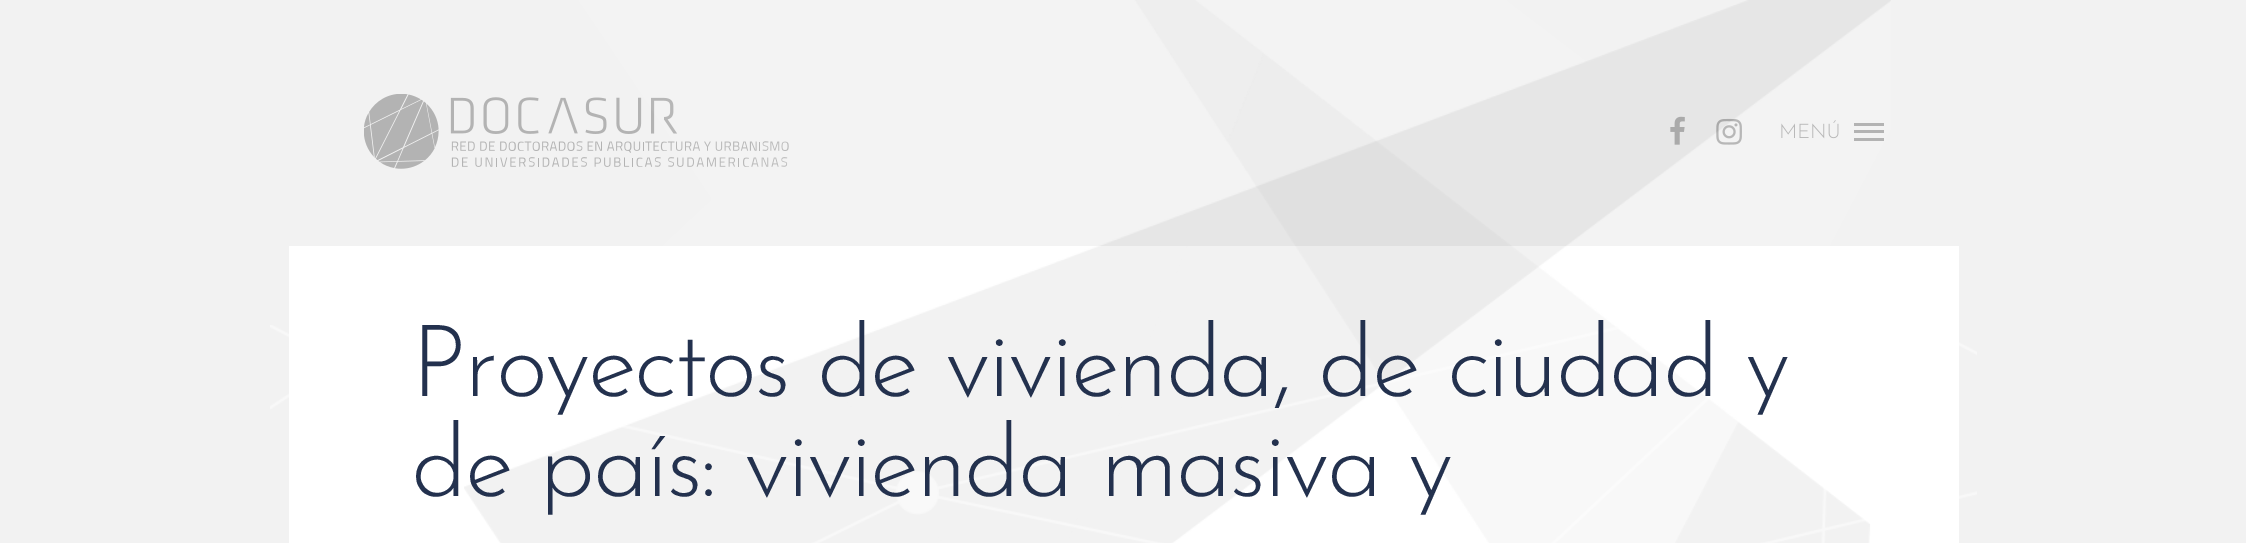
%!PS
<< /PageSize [2246 543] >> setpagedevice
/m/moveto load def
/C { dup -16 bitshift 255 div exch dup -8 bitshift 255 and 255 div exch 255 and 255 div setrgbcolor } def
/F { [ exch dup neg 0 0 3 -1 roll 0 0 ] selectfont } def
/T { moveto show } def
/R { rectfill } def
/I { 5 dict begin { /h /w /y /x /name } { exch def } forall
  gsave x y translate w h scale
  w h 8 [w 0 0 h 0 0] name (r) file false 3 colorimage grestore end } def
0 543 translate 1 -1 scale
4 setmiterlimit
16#F2F2F2 C
0 0 2246 543 R
16#FFFFFF C
289 246 1670 297 R
(2.rgb) 364 94 425 75 I
(3.rgb) 1670 116 15 29 I
(4.rgb) 1716 118 26 27 I
/JosefinSans-Light 20 F
16#B3B3B3 C
(MENÚ) 1779 138 T
(1.rgb) 464 0 1427 543 I
1854 123 30 3 R
1854 130 30 3 R
1854 138 30 3 R
(5.rgb) 270 325 1707 218 I
/JosefinSans-Light 100 F
16#23314E C
411 396 m -2.5 0 (Proyectos de vivienda, de ciudad y) ashow
411 496 m -2.5 0 (de país: vivienda masiva y) ashow
showpage
